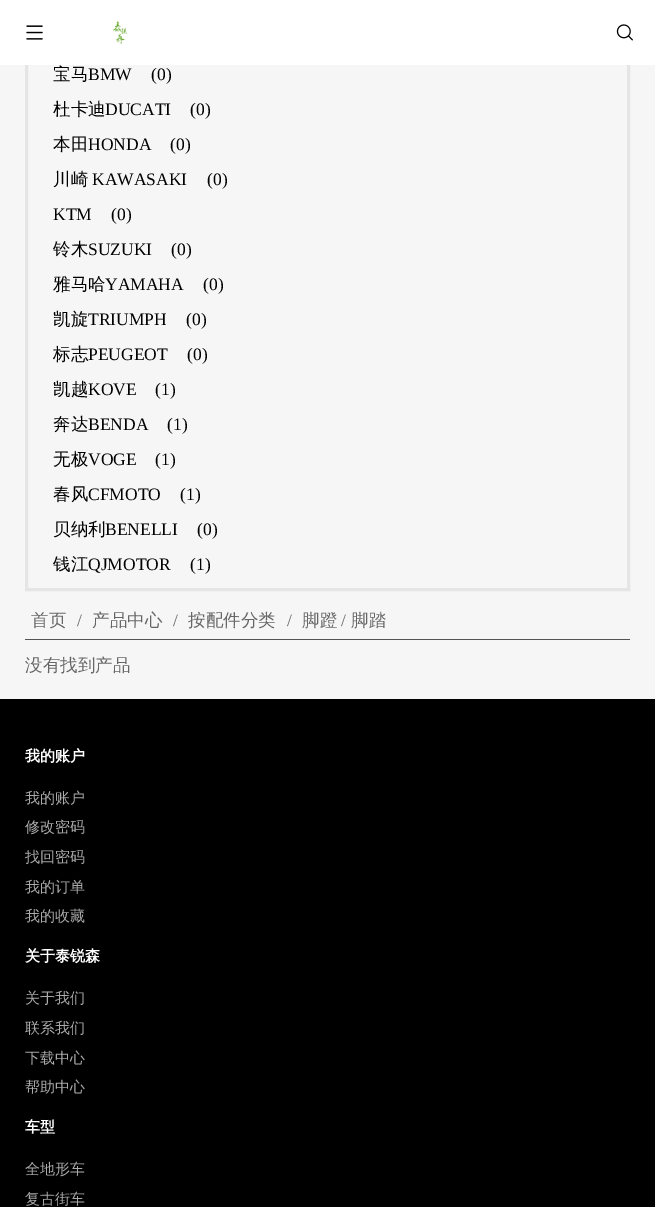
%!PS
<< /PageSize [655 1207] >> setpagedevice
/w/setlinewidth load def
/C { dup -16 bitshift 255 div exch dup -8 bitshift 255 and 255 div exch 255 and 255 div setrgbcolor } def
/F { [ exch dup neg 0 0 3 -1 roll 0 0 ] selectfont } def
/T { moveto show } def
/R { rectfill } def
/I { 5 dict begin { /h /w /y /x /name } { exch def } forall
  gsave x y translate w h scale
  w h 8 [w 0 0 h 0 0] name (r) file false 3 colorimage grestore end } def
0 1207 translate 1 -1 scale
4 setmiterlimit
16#F6F6F6 C
0 0 655 1207 R
16#E5E5E5 C
3 w
26.5 -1.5 602 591 rectstroke
16#FFFFFF C
0 0 655 65 R
(1.rgb) 26 25 17 15 I
(2.rgb) 112 21 16 23 I
(3.rgb) 616 24 17 17 I
/WenQuanYiZenHei-Medium 17.5 F
16#000000 C
(宝马) 53 80 T
/LiberationSerif-Regular 17.5 F
(BMW) 88 80 T
(\(0\)) 151 80 T
/WenQuanYiZenHei-Medium 17.5 F
(杜卡迪) 53 115 T
/LiberationSerif-Regular 17.5 F
(DUCATI) 105 115 T
(\(0\)) 190 115 T
/WenQuanYiZenHei-Medium 17.5 F
(本田) 53 150 T
/LiberationSerif-Regular 17.5 F
(HONDA) 88 150 T
(\(0\)) 170 150 T
/WenQuanYiZenHei-Medium 17.5 F
(川崎) 53 185 T
/LiberationSerif-Regular 17.5 F
(KAWASAKI) 92 185 T
(\(0\)) 207 185 T
(KTM) 53 220 T
(\(0\)) 111 220 T
/WenQuanYiZenHei-Medium 17.5 F
(铃木) 53 255 T
/LiberationSerif-Regular 17.5 F
(SUZUKI) 88 255 T
(\(0\)) 171 255 T
/WenQuanYiZenHei-Medium 17.5 F
(雅马哈) 53 290 T
/LiberationSerif-Regular 17.5 F
(YAMAHA) 105 290 T
(\(0\)) 203 290 T
/WenQuanYiZenHei-Medium 17.5 F
(凯旋) 53 325 T
/LiberationSerif-Regular 17.5 F
(TRIUMPH) 88 325 T
(\(0\)) 186 325 T
/WenQuanYiZenHei-Medium 17.5 F
(标志) 53 360 T
/LiberationSerif-Regular 17.5 F
(PEUGEOT) 88 360 T
(\(0\)) 187 360 T
/WenQuanYiZenHei-Medium 17.5 F
(凯越) 53 395 T
/LiberationSerif-Regular 17.5 F
(KOVE) 88 395 T
(\(1\)) 155 395 T
/WenQuanYiZenHei-Medium 17.5 F
(奔达) 53 430 T
/LiberationSerif-Regular 17.5 F
(BENDA) 88 430 T
(\(1\)) 167 430 T
/WenQuanYiZenHei-Medium 17.5 F
(无极) 53 465 T
/LiberationSerif-Regular 17.5 F
(VOGE) 88 465 T
(\(1\)) 155 465 T
/WenQuanYiZenHei-Medium 17.5 F
(春风) 53 500 T
/LiberationSerif-Regular 17.5 F
(CFMOTO) 88 500 T
(\(1\)) 180 500 T
/WenQuanYiZenHei-Medium 17.5 F
(贝纳利) 53 535 T
/LiberationSerif-Regular 17.5 F
(BENELLI) 105 535 T
(\(0\)) 197 535 T
/WenQuanYiZenHei-Medium 17.5 F
(钱江) 53 570 T
/LiberationSerif-Regular 17.5 F
(QJMOTOR) 88 570 T
(\(1\)) 190 570 T
/WenQuanYiZenHei-Medium 17.5 F
16#666666 C
(首页) 31 626 T
/LiberationSerif-Regular 17.5 F
(/) 77 626 T
/WenQuanYiZenHei-Medium 17.5 F
(产品中心) 92 626 T
/LiberationSerif-Regular 17.5 F
(/) 173 626 T
/WenQuanYiZenHei-Medium 17.5 F
(按配件分类) 188 626 T
/LiberationSerif-Regular 17.5 F
(/) 287 626 T
/WenQuanYiZenHei-Medium 17.5 F
(脚蹬) 302 626 T
/LiberationSerif-Regular 17.5 F
(/) 341 626 T
/WenQuanYiZenHei-Medium 17.5 F
(脚踏) 351 626 T
16#545454 C
25 639 605 1 R
16#666666 C
(没有找到产品) 25 671 T
16#000000 C
0 699 655 508 R
/WenQuanYiZenHei-Bold 15 F
16#FFFFFF C
(我的账户) 25 761 T
/WenQuanYiZenHei-Medium 15 F
16#AAAAAA C
(我的账户) 25 803 T
(修改密码) 25 832 T
(找回密码) 25 862 T
(我的订单) 25 892 T
(我的收藏) 25 921 T
/WenQuanYiZenHei-Bold 15 F
16#FFFFFF C
(关于泰锐森) 25 961 T
/WenQuanYiZenHei-Medium 15 F
16#AAAAAA C
(关于我们) 25 1003 T
(联系我们) 25 1033 T
(下载中心) 25 1063 T
(帮助中心) 25 1092 T
/WenQuanYiZenHei-Bold 15 F
16#FFFFFF C
(车型) 25 1132 T
/WenQuanYiZenHei-Medium 15 F
16#AAAAAA C
(全地形车) 25 1174 T
(复古街车) 25 1204 T
showpage
